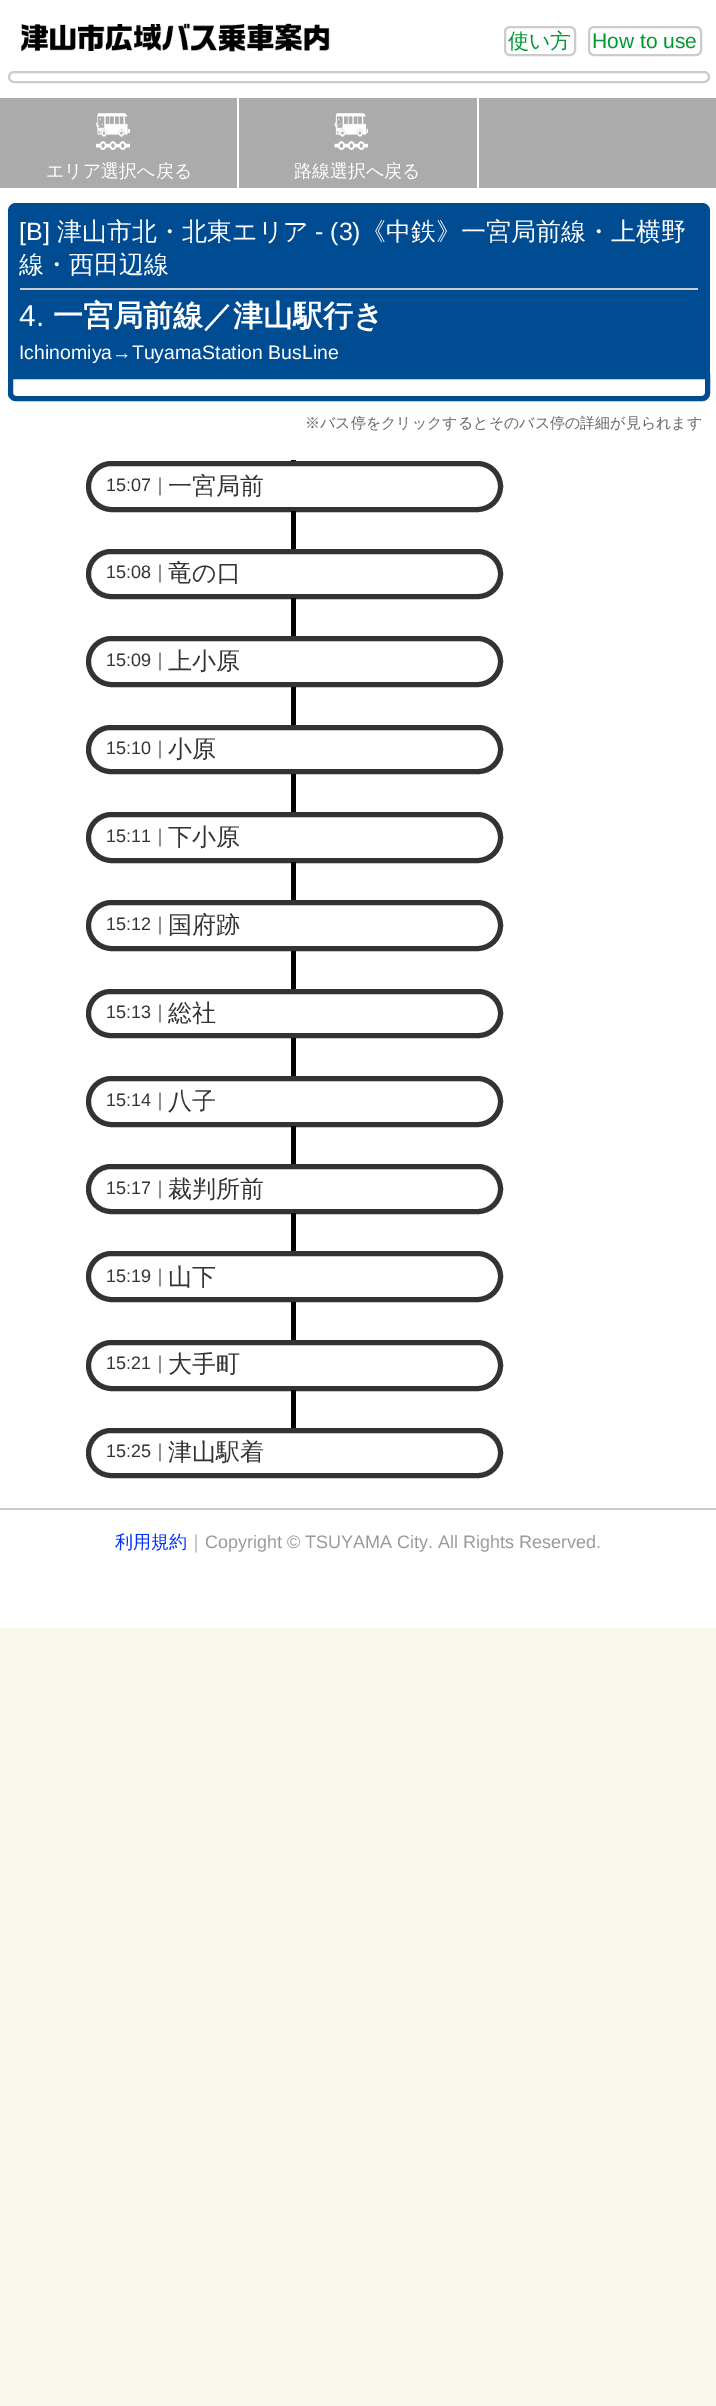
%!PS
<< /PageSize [716 2406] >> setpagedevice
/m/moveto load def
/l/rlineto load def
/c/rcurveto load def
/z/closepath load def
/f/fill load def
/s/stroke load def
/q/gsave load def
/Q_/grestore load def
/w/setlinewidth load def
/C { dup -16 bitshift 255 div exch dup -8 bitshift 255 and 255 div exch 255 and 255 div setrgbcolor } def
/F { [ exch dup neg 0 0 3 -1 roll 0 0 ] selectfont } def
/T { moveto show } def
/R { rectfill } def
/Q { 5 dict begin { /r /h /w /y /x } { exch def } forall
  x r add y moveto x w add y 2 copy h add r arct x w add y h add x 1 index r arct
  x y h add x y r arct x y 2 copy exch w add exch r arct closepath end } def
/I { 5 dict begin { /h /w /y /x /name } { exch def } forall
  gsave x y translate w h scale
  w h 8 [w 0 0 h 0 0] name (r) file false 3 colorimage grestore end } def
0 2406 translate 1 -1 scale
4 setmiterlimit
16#F9F8EC C
0 0 716 2406 R
16#FFFFFF C
0 0 716 1628 R
(1.rgb) 21 23 309 29 I
16#CCCCCC C
2 w
505 27 70 28 5 Q s
/WenQuanYiZenHei-Medium 21 F
16#009933 C
(使い方) 508 48 T
16#CCCCCC C
589 27 112 28 5 Q s
/LiberationSans-Regular 21 F
16#009933 C
(How to use) 592 48 T
16#CCCCCC C
9 72 700 10 5 Q s
16#ABABAB C
0 98 716 90 R
(2.rgb) 96 113 34 37 I
16#FFFFFF C
237 98 2 90 R
/WenQuanYiZenHei-Medium 18 F
(エリア選択へ戻る) 46 177 T
(3.rgb) 334 113 35 37 I
477 98 2 90 R
(路線選択へ戻る) 294 177 T
16#004C92 C
8 203 702 198 8 Q f
/LiberationSans-Regular 25 F
16#FFFFFF C
([B]) 19 240 T
/WenQuanYiZenHei-Medium 25 F
(津山市北・北東エリア) 57 240 T
/LiberationSans-Regular 25 F
(- \(3\)) 315 240 T
/WenQuanYiZenHei-Medium 25 F
(《中鉄》一宮局前線・上横野) 361 240 T
(線・西田辺線) 19 273 T
16#CCCCCC C
20 288 678 2 R
/LiberationSans-Regular 30 F
16#FFFFFF C
(4.) 19 326 T
/WenQuanYiZenHei-Bold 30 F
(一宮局前線／津山駅行き) 53 326 T
/LiberationSans-Regular 19.5 F
(Ichinomiya→TuyamaStation BusLine) 19 359 T
10.5 376.5 m 697 0 l 0 16.5 l 0 3 -2.5 5.5 -5.5 5.5 c -686 0 l -3 0 -5.5 -2.5 -5.5 -5.5 c z q f Q_
16#004C92 C
5 w
s
/WenQuanYiZenHei-Medium 15 F
16#666666 C
(※バス停をクリックするとそのバス停の詳細が見られます) 305 428 T
16#000000 C
291 460 5 1 R
16#333333 C
88.5 463.5 412 46 23 Q s
/LiberationSans-Regular 18 F
(15:07) 106 491 T
/WenQuanYiZenHei-Medium 18 F
(｜) 151 491 T
/WenQuanYiZenHei-Medium 24 F
(一宮局前) 168 494 T
16#000000 C
291 511 5 38 R
16#333333 C
88.5 551.5 412 45 22.5 Q s
/LiberationSans-Regular 18 F
(15:08) 106 578 T
/WenQuanYiZenHei-Medium 18 F
(｜) 151 578 T
/WenQuanYiZenHei-Medium 24 F
(竜の口) 168 581 T
16#000000 C
291 598 5 38 R
16#333333 C
88.5 638.5 412 46 23 Q s
/LiberationSans-Regular 18 F
(15:09) 106 666 T
/WenQuanYiZenHei-Medium 18 F
(｜) 151 666 T
/WenQuanYiZenHei-Medium 24 F
(上小原) 168 669 T
16#000000 C
291 687 5 38 R
16#333333 C
88.5 727.5 412 44 22 Q s
/LiberationSans-Regular 18 F
(15:10) 106 754 T
/WenQuanYiZenHei-Medium 18 F
(｜) 151 754 T
/WenQuanYiZenHei-Medium 24 F
(小原) 168 757 T
16#000000 C
291 774 5 38 R
16#333333 C
88.5 814.5 412 46 23 Q s
/LiberationSans-Regular 18 F
(15:11) 106 842 T
/WenQuanYiZenHei-Medium 18 F
(｜) 151 842 T
/WenQuanYiZenHei-Medium 24 F
(下小原) 168 845 T
16#000000 C
291 862 5 38 R
16#333333 C
88.5 902.5 412 46 23 Q s
/LiberationSans-Regular 18 F
(15:12) 106 930 T
/WenQuanYiZenHei-Medium 18 F
(｜) 151 930 T
/WenQuanYiZenHei-Medium 24 F
(国府跡) 168 933 T
16#000000 C
291 951 5 38 R
16#333333 C
88.5 991.5 412 44 22 Q s
/LiberationSans-Regular 18 F
(15:13) 106 1018 T
/WenQuanYiZenHei-Medium 18 F
(｜) 151 1018 T
/WenQuanYiZenHei-Medium 24 F
(総社) 168 1021 T
16#000000 C
291 1038 5 38 R
16#333333 C
88.5 1078.5 412 46 23 Q s
/LiberationSans-Regular 18 F
(15:14) 106 1106 T
/WenQuanYiZenHei-Medium 18 F
(｜) 151 1106 T
/WenQuanYiZenHei-Medium 24 F
(八子) 168 1109 T
16#000000 C
291 1126 5 38 R
16#333333 C
88.5 1166.5 412 45 22.5 Q s
/LiberationSans-Regular 18 F
(15:17) 106 1194 T
/WenQuanYiZenHei-Medium 18 F
(｜) 151 1194 T
/WenQuanYiZenHei-Medium 24 F
(裁判所前) 168 1197 T
16#000000 C
291 1213 5 38 R
16#333333 C
88.5 1253.5 412 46 23 Q s
/LiberationSans-Regular 18 F
(15:19) 106 1282 T
/WenQuanYiZenHei-Medium 18 F
(｜) 151 1282 T
/WenQuanYiZenHei-Medium 24 F
(山下) 168 1285 T
16#000000 C
291 1302 5 38 R
16#333333 C
88.5 1342.5 412 46 23 Q s
/LiberationSans-Regular 18 F
(15:21) 106 1369 T
/WenQuanYiZenHei-Medium 18 F
(｜) 151 1369 T
/WenQuanYiZenHei-Medium 24 F
(大手町) 168 1372 T
16#000000 C
291 1390 5 38 R
16#333333 C
88.5 1430.5 412 45 22.5 Q s
/LiberationSans-Regular 18 F
(15:25) 106 1457 T
/WenQuanYiZenHei-Medium 18 F
(｜) 151 1457 T
/WenQuanYiZenHei-Medium 24 F
(津山駅着) 168 1460 T
16#CCCCCC C
0 1508 716 2 R
/WenQuanYiZenHei-Medium 18 F
16#0033FF C
(利用規約) 115 1548 T
16#999999 C
(｜) 187 1548 T
/LiberationSans-Regular 18 F
(Copyright © TSUYAMA City. All Rights Reserved.) 205 1548 T
showpage
